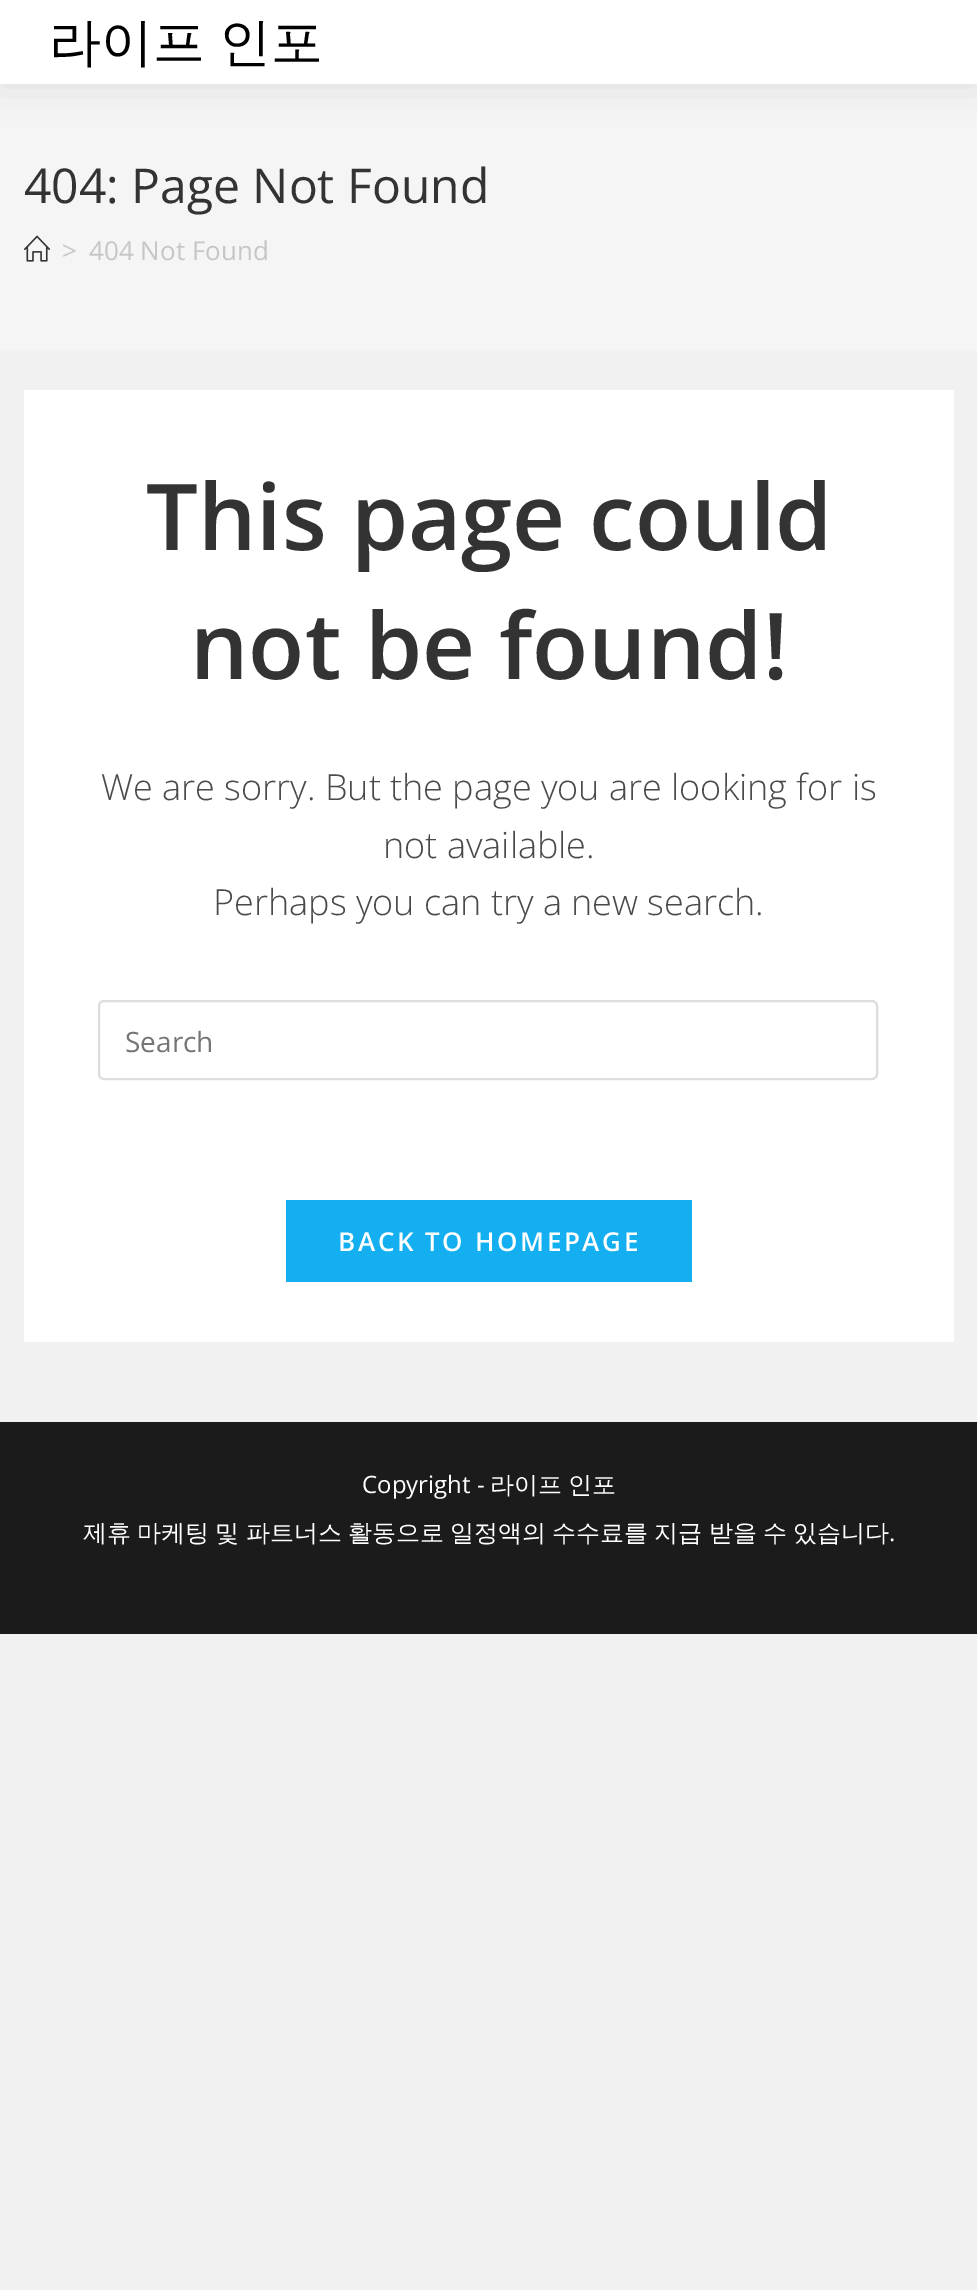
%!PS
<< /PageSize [977 2290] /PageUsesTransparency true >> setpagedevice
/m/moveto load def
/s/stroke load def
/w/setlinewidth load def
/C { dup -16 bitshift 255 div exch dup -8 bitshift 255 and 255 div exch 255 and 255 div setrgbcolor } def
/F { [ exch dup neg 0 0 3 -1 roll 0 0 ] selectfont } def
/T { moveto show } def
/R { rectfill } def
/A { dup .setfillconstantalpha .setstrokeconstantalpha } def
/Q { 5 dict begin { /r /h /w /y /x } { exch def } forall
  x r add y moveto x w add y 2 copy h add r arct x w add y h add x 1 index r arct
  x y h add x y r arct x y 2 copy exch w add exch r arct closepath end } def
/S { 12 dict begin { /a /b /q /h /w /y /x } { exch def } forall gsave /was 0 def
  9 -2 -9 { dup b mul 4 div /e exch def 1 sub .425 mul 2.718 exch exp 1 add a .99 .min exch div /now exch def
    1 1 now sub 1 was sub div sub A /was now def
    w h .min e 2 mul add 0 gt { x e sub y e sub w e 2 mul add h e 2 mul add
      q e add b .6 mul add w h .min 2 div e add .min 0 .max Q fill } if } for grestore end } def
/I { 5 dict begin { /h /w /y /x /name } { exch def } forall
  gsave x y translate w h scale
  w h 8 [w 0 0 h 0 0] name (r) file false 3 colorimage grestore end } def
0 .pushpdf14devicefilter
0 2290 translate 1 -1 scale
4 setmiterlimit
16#F1F1F1 C
0 0 977 2290 R
16#F5F5F5 C
0 84 977 266 R
16#000000 C
0 0 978 84 0 20 .1 S
16#FFFFFF C
0 0 977 84 R
/WenQuanYiZenHei-Medium 52 F
16#000000 C
49 60 m -2 0 32 (라이프 인포) widthshow
/OpenSans-Regular 48 F
16#333333 C
(404: Page Not Found) 24 203 T
(1.rgb) 24 235 26 27 I
/OpenSans-Regular 26 F
16#C6C6C6 C
(>) 62 260 T
(404 Not Found) 89 260 T
16#FFFFFF C
24 390 930 952 R
/OpenSans-SemiBold 92 F
16#333333 C
(This page could) 146 550 T
(not be found!) 190 679 T
/OpenSans-Light 36 F
16#4A4A4A C
(We are sorry. But the page you are looking for is) 101 800 T
(not available.) 383 858 T
(Perhaps you can try a new search.) 213 915 T
16#DDDDDD C
2 w
99 1001 778 78 5 Q s
/OpenSans-Regular 28 F
16#757575 C
(Search) 125 1052 T
16#13AFF0 C
286 1200 406 82 R
/OpenSans-SemiBold 26 F
16#FFFFFF C
338 1251 m 2.6 0 (BACK TO HOMEPAGE) ashow
16#1B1B1B C
0 1422 977 212 R
/OpenSans-Regular 24 F
16#FFFFFF C
(Copyright -) 362 1493 T
/WenQuanYiZenHei-Medium 24 F
(라이프) 490 1493 T
(인포) 568 1493 T
83 1541 m -1 0 32 (제휴 마케팅 및 파트너스 활동으로 일정액의 수수료를 지급 받을 수 있습니다) widthshow
/OpenSans-Regular 24 F
(.) 889 1541 T
.poppdf14devicefilter showpage
